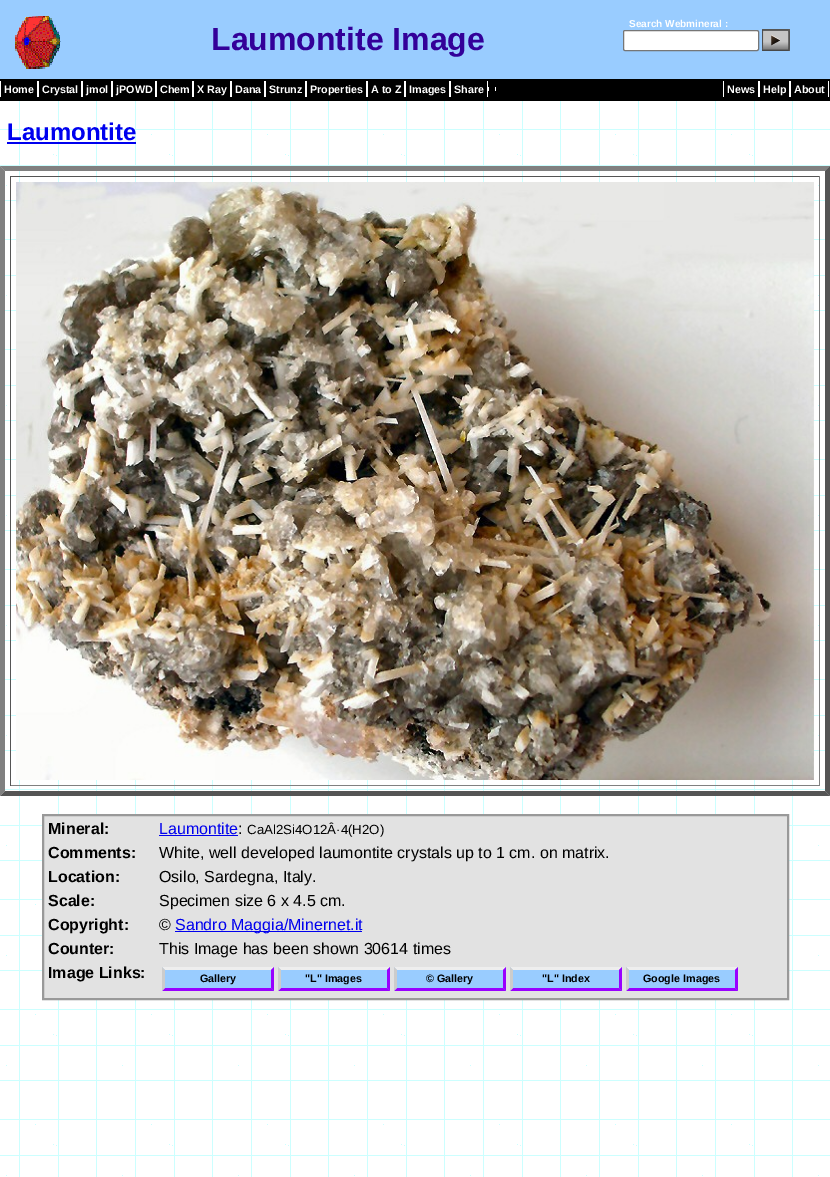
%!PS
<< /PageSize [830 1177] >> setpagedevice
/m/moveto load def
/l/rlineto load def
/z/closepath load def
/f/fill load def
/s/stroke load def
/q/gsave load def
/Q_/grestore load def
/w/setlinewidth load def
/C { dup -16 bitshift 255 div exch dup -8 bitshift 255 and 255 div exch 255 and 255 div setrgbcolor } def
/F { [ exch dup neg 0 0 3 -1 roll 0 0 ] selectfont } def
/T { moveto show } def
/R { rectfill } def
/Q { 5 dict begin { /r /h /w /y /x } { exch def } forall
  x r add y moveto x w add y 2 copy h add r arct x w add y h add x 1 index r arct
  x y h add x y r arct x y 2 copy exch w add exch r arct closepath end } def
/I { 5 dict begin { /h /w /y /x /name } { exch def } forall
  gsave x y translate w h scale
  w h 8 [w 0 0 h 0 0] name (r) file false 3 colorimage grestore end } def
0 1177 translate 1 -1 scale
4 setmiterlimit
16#FFFFFF C
0 0 830 1177 R
(1.rgb) 0 101 830 1076 I
16#99CCFF C
0 0 830 79 R
16#000000 C
0 79 830 22 R
(2.rgb) 15 16 46 53 I
/LiberationSans-Bold 10 F
16#FFFFFF C
(Search Webmineral :) 629 27 T
623.5 30.5 135 20 1.5 Q q f Q_
16#767676 C
s
(3.rgb) 762 29 28 22 I
/LiberationSans-Bold 32 F
16#330099 C
(Laumontite Image) 211 50 T
16#FFFFFF C
37 81 2 16 R
0 81 1 16 R
/LiberationSans-Bold 10.75 F
(Home) 4 93 T
81 81 2 16 R
(Crystal) 42 93 T
111 81 2 16 R
(jmol) 86 93 T
155 81 2 16 R
(jPOWD) 116 93 T
192 81 2 16 R
(Chem) 160 93 T
230 81 2 16 R
(X Ray) 197 93 T
264 81 2 16 R
(Dana) 235 93 T
305 81 2 16 R
(Strunz) 269 93 T
366 81 2 16 R
(Properties) 310 93 T
404 81 2 16 R
(A to Z) 371 93 T
449 81 2 16 R
(Images) 409 93 T
487 81 1 16 R
(Share) 454 93 T
495 87 1 4 R
488 87 1 4 R
758 81 2 16 R
723 81 1 16 R
(News) 727 93 T
789 81 2 16 R
(Help) 763 93 T
828 81 1 16 R
(About) 794 93 T
/LiberationSans-Bold 24 F
16#0000EE C
(Laumontite) 7 140 T
7 142 129 2 R
16#808080 C
0 166 m 830 0 l -5 5 l -820 0 l z f
16#555555 C
830 166 m 0 630 l -5 -5 l 0 -620 l z f
830 796 m -830 0 l 5 -5 l 820 0 l z f
16#808080 C
0 796 m 0 -630 l 5 5 l 0 620 l z f
16#555555 C
10 176 810 1 R
16#808080 C
819 176 1 610 R
10 785 810 1 R
16#555555 C
10 176 1 610 R
(4.rgb) 16 182 798 598 I
16#E2E2E2 C
43 815 m 745 0 l 0 184 l -745 0 l z q f Q_
16#999999 C
2 w
s
/LiberationSans-Bold 16 F
16#000000 C
(Mineral:) 48 834 T
/LiberationSans-Regular 16 F
16#0000EE C
(Laumontite) 159 834 T
159 835 79 1 R
16#000000 C
(:) 238 834 T
/LiberationSans-Regular 13.25 F
(CaAl2Si4O12Â·4\(H2O\)) 247 834 T
/LiberationSans-Bold 16 F
(Comments:) 48 858 T
/LiberationSans-Regular 16 F
(White, well developed laumontite crystals up to 1 cm. on matrix.) 159 858 T
/LiberationSans-Bold 16 F
(Location:) 48 882 T
/LiberationSans-Regular 16 F
(Osilo, Sardegna, Italy.) 159 882 T
/LiberationSans-Bold 16 F
(Scale:) 48 906 T
/LiberationSans-Regular 16 F
(Specimen size 6 x 4.5 cm.) 159 906 T
/LiberationSans-Bold 16 F
(Copyright:) 48 930 T
/LiberationSans-Regular 16 F
(©) 159 930 T
16#0000EE C
175 931 187 1 R
(Sandro Maggia/Minernet.it) 175 930 T
/LiberationSans-Bold 16 F
16#000000 C
(Counter:) 48 954 T
/LiberationSans-Regular 16 F
(This Image has been shown 30614 times) 159 954 T
/LiberationSans-Bold 16 F
(Image Links:) 48 978 T
16#99CCFF C
162 967 112 24 R
16#EEEEEE C
162 967 m 112 0 l -3 3 l -106 0 l z f
16#9900FF C
274 967 m 0 24 l -3 -3 l 0 -18 l z f
274 991 m -112 0 l 3 -3 l 106 0 l z f
16#CCCCCC C
162 991 m 0 -24 l 3 3 l 0 18 l z f
/LiberationSans-Bold 10.75 F
16#000000 C
(Gallery) 200 982 T
16#99CCFF C
278 967 112 24 R
16#EEEEEE C
278 967 m 112 0 l -3 3 l -106 0 l z f
16#9900FF C
390 967 m 0 24 l -3 -3 l 0 -18 l z f
390 991 m -112 0 l 3 -3 l 106 0 l z f
16#CCCCCC C
278 991 m 0 -24 l 3 3 l 0 18 l z f
16#000000 C
("L" Images) 305 982 T
16#99CCFF C
394 967 112 24 R
16#EEEEEE C
394 967 m 112 0 l -3 3 l -106 0 l z f
16#9900FF C
506 967 m 0 24 l -3 -3 l 0 -18 l z f
506 991 m -112 0 l 3 -3 l 106 0 l z f
16#CCCCCC C
394 991 m 0 -24 l 3 3 l 0 18 l z f
16#000000 C
(© Gallery) 426 982 T
16#99CCFF C
510 967 112 24 R
16#EEEEEE C
510 967 m 112 0 l -3 3 l -106 0 l z f
16#9900FF C
622 967 m 0 24 l -3 -3 l 0 -18 l z f
622 991 m -112 0 l 3 -3 l 106 0 l z f
16#CCCCCC C
510 991 m 0 -24 l 3 3 l 0 18 l z f
16#000000 C
("L" Index) 542 982 T
16#99CCFF C
626 967 112 24 R
16#EEEEEE C
626 967 m 112 0 l -3 3 l -106 0 l z f
16#9900FF C
738 967 m 0 24 l -3 -3 l 0 -18 l z f
738 991 m -112 0 l 3 -3 l 106 0 l z f
16#CCCCCC C
626 991 m 0 -24 l 3 3 l 0 18 l z f
16#000000 C
(Google Images) 643 982 T
showpage
